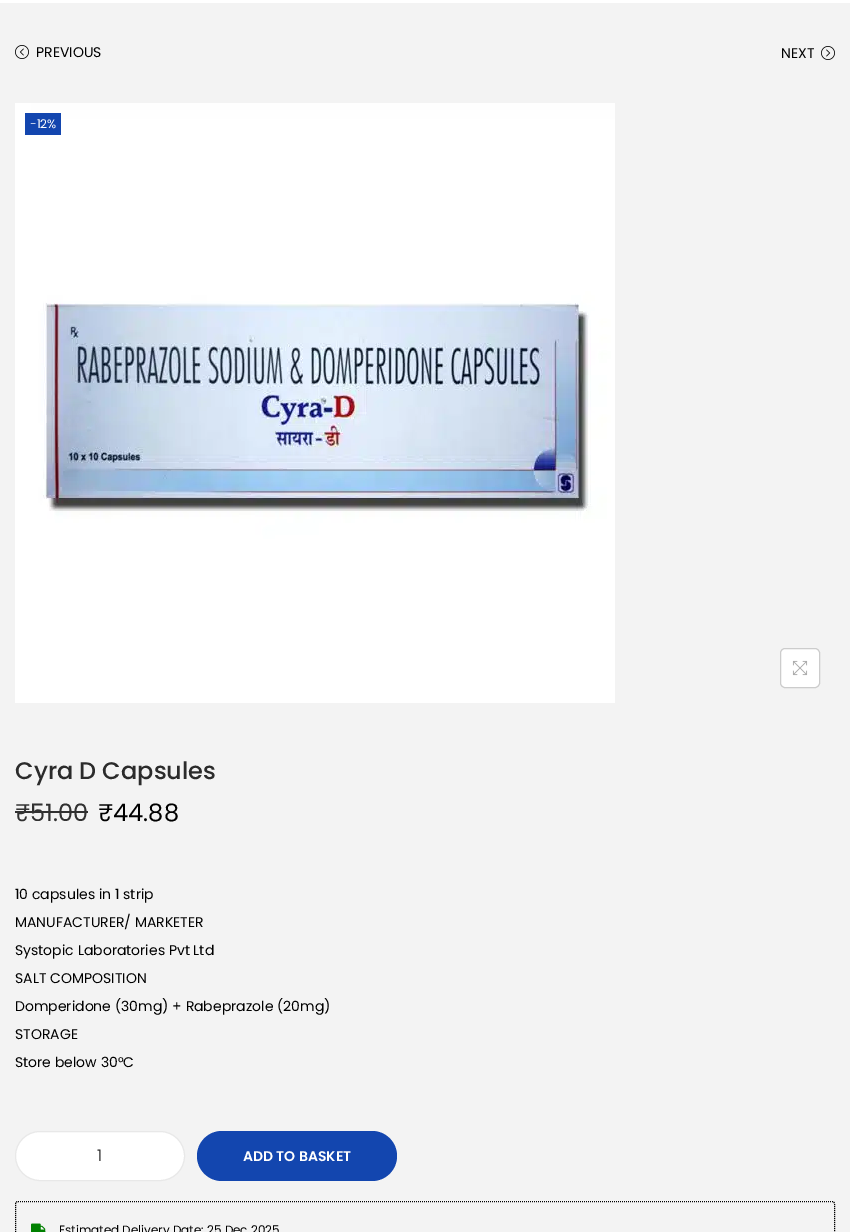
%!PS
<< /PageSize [850 1232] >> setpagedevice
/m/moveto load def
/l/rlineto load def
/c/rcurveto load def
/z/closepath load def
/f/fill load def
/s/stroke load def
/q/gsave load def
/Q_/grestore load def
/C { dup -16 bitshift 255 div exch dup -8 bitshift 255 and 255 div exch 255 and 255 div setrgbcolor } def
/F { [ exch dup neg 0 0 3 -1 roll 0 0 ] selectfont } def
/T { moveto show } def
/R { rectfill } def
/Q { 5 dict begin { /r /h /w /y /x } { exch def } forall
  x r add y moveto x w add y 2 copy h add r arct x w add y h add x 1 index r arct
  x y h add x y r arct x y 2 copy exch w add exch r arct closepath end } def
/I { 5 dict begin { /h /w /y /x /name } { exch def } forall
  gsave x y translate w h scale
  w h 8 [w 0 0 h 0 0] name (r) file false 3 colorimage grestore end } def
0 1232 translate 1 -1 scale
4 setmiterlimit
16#F3F3F3 C
0 0 850 1232 R
16#FFFFFF C
0 0 850 3 R
(1.rgb) 15 45 14 14 I
/Poppins-Regular 14 F
16#000000 C
(PREVIOUS) 36 57 T
(NEXT) 781 58 T
(2.rgb) 821 46 14 14 I
(3.rgb) 15 103 600 600 I
16#1346AF C
25 113 36 22 R
/Poppins-Regular 12 F
16#FFFFFF C
(-12%) 30 128 T
780.5 648.5 39 39 4.5 Q q f Q_
16#CCCCCC C
s
(4.rgb) 792 660 16 16 I
/Poppins-Medium 24 F
16#2B2B2B C
(Cyra D Capsules) 15 779 T
/Poppins-Regular 24 F
16#313131 C
(₹51.00) 15 821 T
15 811 73 2 R
16#000000 C
(₹44.88) 98 821 T
/Poppins-Regular 14 F
(10 capsules in 1 strip) 15 899 T
(MANUFACTURER/ MARKETER) 15 927 T
(Systopic Laboratories Pvt Ltd) 15 955 T
(SALT COMPOSITION) 15 983 T
(Domperidone \(30mg\) + Rabeprazole \(20mg\)) 15 1011 T
(STORAGE) 15 1039 T
(Store below 30°C) 15 1067 T
16#FFFFFF C
15.5 1131.5 169 49 24.5 Q q f Q_
16#E8E8E8 C
s
/Poppins-Regular 16 F
16#2B2B2B C
(1) 97 1161 T
16#1346AF C
197 1131 200 50 25 Q f
/Poppins-SemiBold 14 F
16#FFFFFF C
(ADD TO BASKET) 243 1161 T
16#000000 C
[1 1] 0 setdash
18 1201.5 m 814 0 l 1.5 0 2.5 1 2.5 2.5 c 0 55 l 0 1.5 -1 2.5 -2.5 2.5 c -814 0 l -1.5 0 -2.5 -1 -2.5 -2.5 c 0 -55 l 0 -1.5 1 -2.5 2.5 -2.5 c z s
(5.rgb) 31 1223 15 9 I
/Poppins-Regular 12 F
(Estimated Delivery Date: 25 Dec 2025) 59 1234 T
showpage
